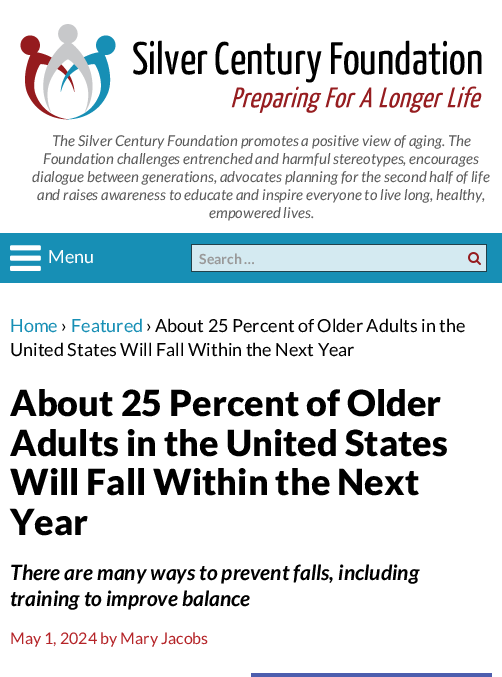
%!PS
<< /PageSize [502 677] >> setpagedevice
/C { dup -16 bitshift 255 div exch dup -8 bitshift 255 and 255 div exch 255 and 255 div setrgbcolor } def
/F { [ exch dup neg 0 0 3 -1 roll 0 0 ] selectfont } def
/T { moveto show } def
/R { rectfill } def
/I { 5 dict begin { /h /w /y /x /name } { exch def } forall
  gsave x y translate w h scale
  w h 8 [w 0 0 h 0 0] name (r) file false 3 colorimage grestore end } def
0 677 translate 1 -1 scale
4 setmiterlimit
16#FFFFFF C
0 0 502 677 R
(1.rgb) 20 24 462 96 I
/Lato-Italic 15 F
16#5B5B5B C
(The Silver Century Foundation promotes a positive view of aging. The) 52 146 T
(Foundation challenges entrenched and harmful stereotypes, encourages) 43 164 T
(dialogue between generations, advocates planning for the second half of life) 32 182 T
(and raises awareness to educate and inspire everyone to live long, healthy,) 37 200 T
(empowered lives.) 209 218 T
16#178FB5 C
0 233 502 50 R
(2.rgb) 10 245 31 26 I
/Lato-Regular 18 F
16#FFFFFF C
(Menu) 48 263 T
16#D4EAF1 C
192 245 294 26 R
16#23414A C
191 244 296 1 R
191 271 272 1 R
191 244 1 28 R
/Lato-Bold 14 F
16#999999 C
(Search …) 199 264 T
16#23414A C
486 244 1 28 R
463 271 24 1 R
(3.rgb) 468 252 13 13 I
/Lato-Regular 18 F
16#178FB5 C
(Home) 10 332 T
16#000000 C
(›) 61 332 T
16#178FB5 C
(Featured) 71 332 T
16#000000 C
(› About 25 Percent of Older Adults in the) 146 332 T
(United States Will Fall Within the Next Year) 10 356 T
/Lato-Black 36 F
(About 25 Percent of Older) 10 416 T
(Adults in the United States) 10 456 T
(Will Fall Within the Next) 10 495 T
(Year) 10 535 T
/Lato-BoldItalic 21 F
(There are many ways to prevent falls, including) 10 580 T
(training to improve balance) 10 606 T
/Lato-Regular 16 F
16#B52428 C
(May 1, 2024 by Mary Jacobs) 10 644 T
16#4D5EAE C
251 673 241 4 R
showpage
